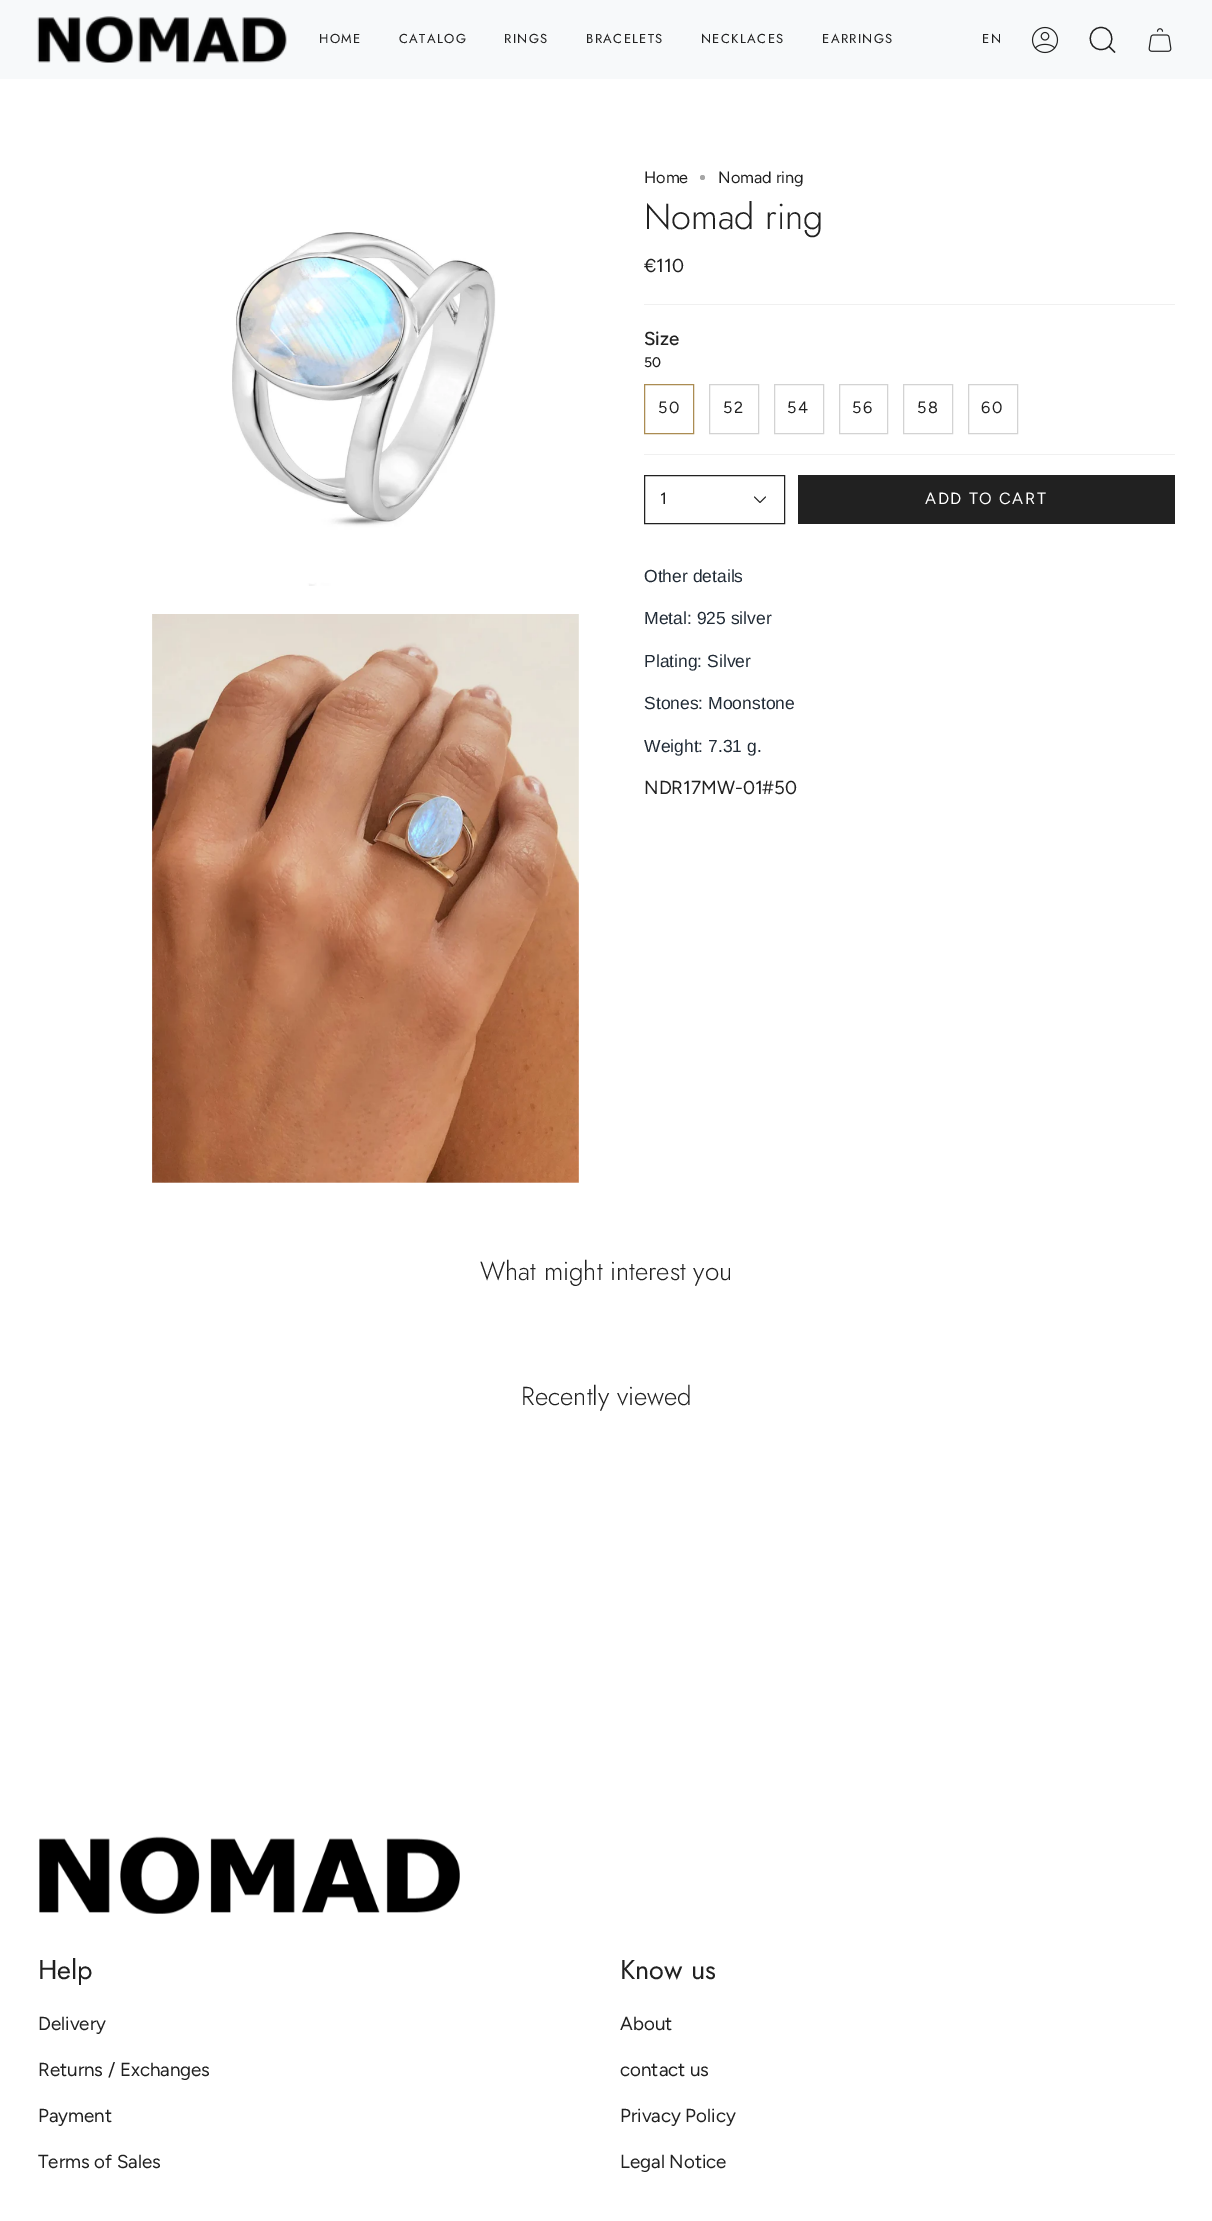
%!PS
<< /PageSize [1212 2221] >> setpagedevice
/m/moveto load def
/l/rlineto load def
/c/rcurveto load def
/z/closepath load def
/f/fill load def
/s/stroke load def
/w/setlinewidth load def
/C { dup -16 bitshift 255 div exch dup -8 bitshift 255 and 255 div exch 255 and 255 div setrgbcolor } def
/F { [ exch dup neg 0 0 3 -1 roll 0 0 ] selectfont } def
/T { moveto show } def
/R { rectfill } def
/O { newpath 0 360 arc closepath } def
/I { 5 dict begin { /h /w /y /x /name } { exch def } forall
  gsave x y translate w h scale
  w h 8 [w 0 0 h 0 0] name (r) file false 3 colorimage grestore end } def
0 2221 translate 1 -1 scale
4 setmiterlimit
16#FFFFFF C
0 0 1212 2221 R
16#F7F9FA C
0 0 1212 79 R
(1.rgb) 37 16 250 47 I
/Jost-Regular 13 F
16#212121 C
319 43 m 1.4 0 (HOME) ashow
399 43 m 1.4 0 (CATALOG) ashow
504 43 m 1.4 0 (RINGS) ashow
586 43 m 1.4 0 (BRACELETS) ashow
701 43 m 1.4 0 (NECKLACES) ashow
822 43 m 1.4 0 (EARRINGS) ashow
982 43 m 2 0 (EN) ashow
(2.rgb) 1031 26 28 28 I
1.2 w
1101 27.5 m 14.5 0 14.5 23 -.5 22 c -14 -.5 -13.5 -22 .5 -22 c z 1109 46.5 m 6 6 l s
(3.rgb) 1148 28 24 24 I
(4.rgb) 232 232 264 354 I
(5.rgb) 152 614 427 569 I
/Figtree-Regular 16.25 F
(Home) 644 183 T
16#A6A6A6 C
702.5 177.5 2.5 O f
16#212121 C
(Nomad ring) 718 183 T
/Jost-Light 36 F
(Nomad ring) 644 229 T
/Figtree-Regular 18.75 F
(€110) 644 272 T
16#F0F0F0 C
644 304 531 1 R
644 454 531 1 R
/Figtree-Medium 18.75 F
16#212121 C
(Size) 644 345 T
/Figtree-Medium 14 F
(50) 644 367 T
16#AB8C52 C
1 w
644.5 384.5 49 49 rectstroke
/Figtree-Regular 16.25 F
16#212121 C
658 413 m 1.6 0 (50) ashow
16#D3D3D3 C
709.5 384.5 49 49 rectstroke
16#212121 C
723 413 m 1.6 0 (52) ashow
16#D3D3D3 C
774.5 384.5 49 49 rectstroke
16#212121 C
787 413 m 1.6 0 (54) ashow
16#D3D3D3 C
839.5 384.5 48 49 rectstroke
16#212121 C
852 413 m 1.6 0 (56) ashow
16#D3D3D3 C
903.5 384.5 49 49 rectstroke
16#212121 C
917 413 m 1.6 0 (58) ashow
16#D3D3D3 C
968.5 384.5 49 49 rectstroke
16#212121 C
981 413 m 1.6 0 (60) ashow
644.5 475.5 140 48 rectstroke
(1) 660 504 T
.9 w
1 setlinecap
1 setlinejoin
754.5 497 m 5.5 5.5 l 5.5 -5.5 l s
798 475 377 49 R
16#FFFFFF C
925 504 m 1.6 0 (ADD TO CART) ashow
16#212121 C
976 499.5 m 1 -1 l 7 7 l -.5 1 l z f
/LiberationSans-Regular 17.5 F
16#212B36 C
(Other details) 644 582 T
(Metal: 925 silver) 644 624 T
(Plating: Silver) 644 667 T
(Stones: Moonstone) 644 709 T
(Weight: 7.31 g.) 644 752 T
/Figtree-Regular 18.75 F
16#212121 C
(NDR17MW-01#50) 644 794 T
/Jost-Light 25.9 F
(What might interest you) 480 1280 T
(Recently viewed) 521 1405 T
(6.rgb) 39 1836 421 78 I
/Jost-Regular 27 F
(Help) 38 1979 T
/Figtree-Regular 18.75 F
(Delivery) 38 2030 T
(Returns / Exchanges) 38 2076 T
(Payment) 38 2122 T
(Terms of Sales) 38 2168 T
/Jost-Regular 27 F
(Know us) 620 1979 T
/Figtree-Regular 18.75 F
(About) 620 2030 T
(contact us) 620 2076 T
(Privacy Policy) 620 2122 T
(Legal Notice) 620 2168 T
showpage
